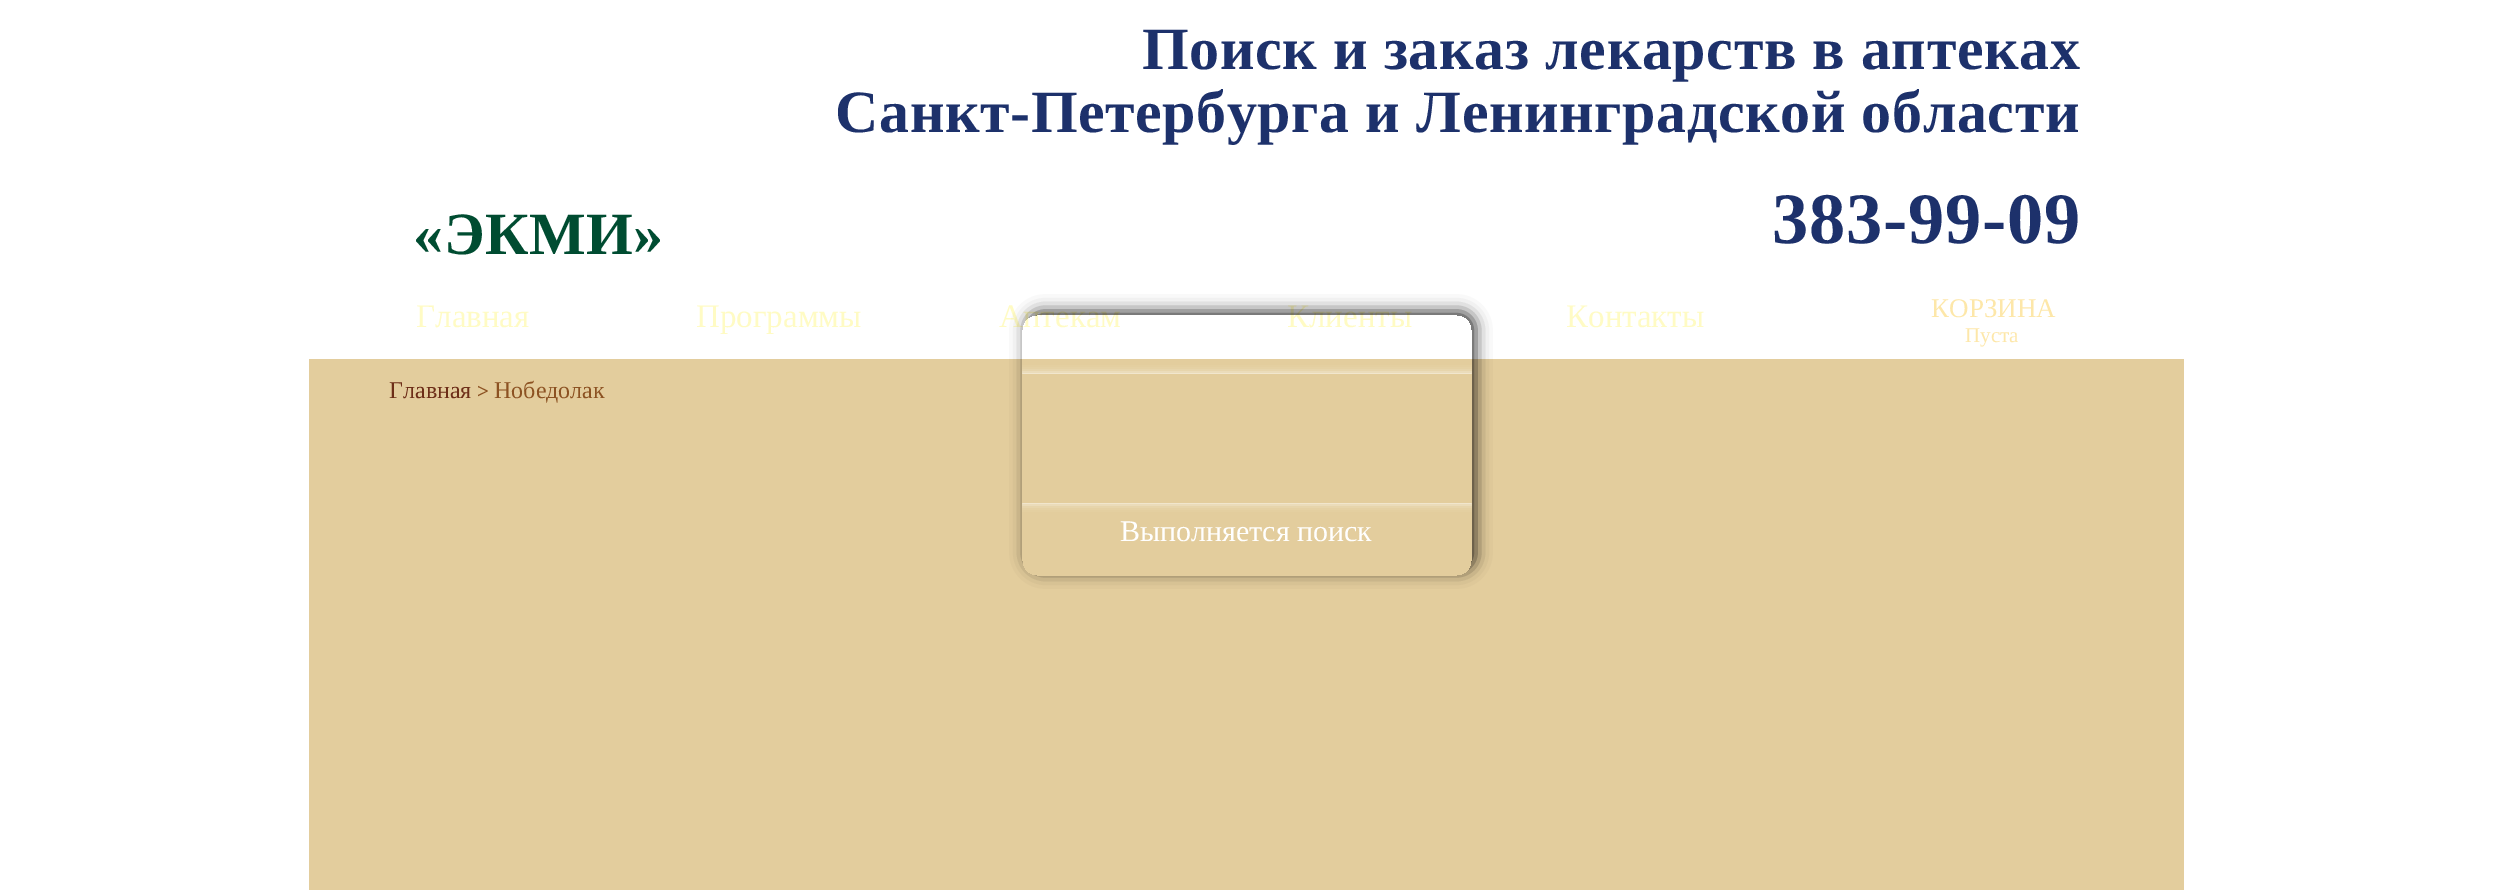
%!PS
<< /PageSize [2493 890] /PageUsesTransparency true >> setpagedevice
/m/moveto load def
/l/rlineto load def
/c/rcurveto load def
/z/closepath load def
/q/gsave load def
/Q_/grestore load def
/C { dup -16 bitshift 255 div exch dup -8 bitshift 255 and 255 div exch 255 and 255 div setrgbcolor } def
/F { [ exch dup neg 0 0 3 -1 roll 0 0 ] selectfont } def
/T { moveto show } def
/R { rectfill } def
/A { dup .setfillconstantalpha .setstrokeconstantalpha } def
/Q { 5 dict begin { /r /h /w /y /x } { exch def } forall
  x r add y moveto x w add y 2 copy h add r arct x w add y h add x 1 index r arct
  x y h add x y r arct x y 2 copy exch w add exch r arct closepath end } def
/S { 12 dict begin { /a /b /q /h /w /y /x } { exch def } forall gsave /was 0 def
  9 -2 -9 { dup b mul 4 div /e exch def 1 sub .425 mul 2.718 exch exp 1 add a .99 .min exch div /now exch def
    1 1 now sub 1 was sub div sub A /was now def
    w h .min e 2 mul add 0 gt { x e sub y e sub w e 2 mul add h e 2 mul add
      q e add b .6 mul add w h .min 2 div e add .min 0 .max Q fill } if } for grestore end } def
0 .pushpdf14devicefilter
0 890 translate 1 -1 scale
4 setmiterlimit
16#FFFFFF C
0 0 2493 890 R
/LiberationSerif-Bold 60 F
16#1D316B C
1142 69 m .6 0 (Поиск и заказ лекарств в аптеках) ashow
835 132 m .6 0 (Санкт-Петербурга и Ленинградской области) ashow
16#004C31 C
413 254 m .6 0 («ЭКМИ») ashow
/LiberationSerif-Bold 72.5 F
16#1D316B C
1772 243 m .75 0 (383-99-09) ashow
/LiberationSerif-Regular 33 F
16#FFFBC4 C
(Главная) 416 327 T
(Программы) 696 327 T
(Аптекам) 999 327 T
(Клиенты) 1287 327 T
(Контакты) 1566 327 T
/LiberationSerif-Regular 27 F
16#FDE7A9 C
(КОРЗИНА) 1931 317 T
/LiberationSerif-Regular 21 F
(Пуста) 1965 342 T
16#E3CD9D C
309 359 1875 531 R
/LiberationSerif-Regular 24 F
16#6D2E18 C
(Главная) 389 398 T
/LiberationSerif-Bold 21 F
16#8C5222 C
(>) 477 398 T
/LiberationSerif-Regular 24 F
(Нобедолак) 494 398 T
q
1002 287 m 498 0 l 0 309 l -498 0 l z 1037 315 m 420 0 l 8.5 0 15 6.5 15 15 c 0 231 l 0 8.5 -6.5 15 -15 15 c -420 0 l -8.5 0 -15 -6.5 -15 -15 c 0 -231 l 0 -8.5 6.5 -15 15 -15 c z eoclip newpath
16#000000 C
1026 311 450 261 15 7.5 .75 S
Q_
q
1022 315 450 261 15 Q clip newpath
16#FFFFFF C
1022 374 450 129 0 4 1 S
Q_
16#E3CD9D C
1022 374 450 129 R
/LiberationSerif-Regular 30 F
16#FFFFFF C
(Выполняется поиск) 1120 541 T
.poppdf14devicefilter showpage
